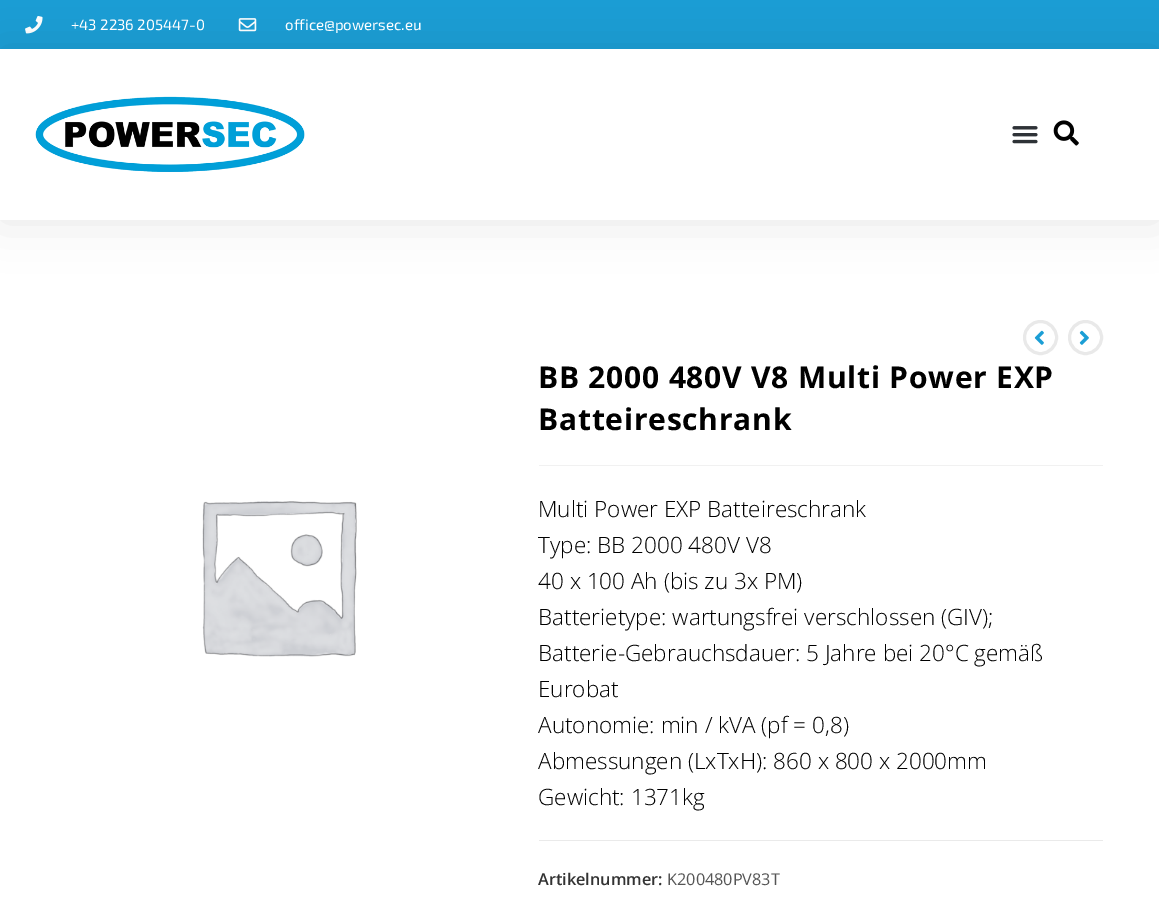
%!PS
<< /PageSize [1159 900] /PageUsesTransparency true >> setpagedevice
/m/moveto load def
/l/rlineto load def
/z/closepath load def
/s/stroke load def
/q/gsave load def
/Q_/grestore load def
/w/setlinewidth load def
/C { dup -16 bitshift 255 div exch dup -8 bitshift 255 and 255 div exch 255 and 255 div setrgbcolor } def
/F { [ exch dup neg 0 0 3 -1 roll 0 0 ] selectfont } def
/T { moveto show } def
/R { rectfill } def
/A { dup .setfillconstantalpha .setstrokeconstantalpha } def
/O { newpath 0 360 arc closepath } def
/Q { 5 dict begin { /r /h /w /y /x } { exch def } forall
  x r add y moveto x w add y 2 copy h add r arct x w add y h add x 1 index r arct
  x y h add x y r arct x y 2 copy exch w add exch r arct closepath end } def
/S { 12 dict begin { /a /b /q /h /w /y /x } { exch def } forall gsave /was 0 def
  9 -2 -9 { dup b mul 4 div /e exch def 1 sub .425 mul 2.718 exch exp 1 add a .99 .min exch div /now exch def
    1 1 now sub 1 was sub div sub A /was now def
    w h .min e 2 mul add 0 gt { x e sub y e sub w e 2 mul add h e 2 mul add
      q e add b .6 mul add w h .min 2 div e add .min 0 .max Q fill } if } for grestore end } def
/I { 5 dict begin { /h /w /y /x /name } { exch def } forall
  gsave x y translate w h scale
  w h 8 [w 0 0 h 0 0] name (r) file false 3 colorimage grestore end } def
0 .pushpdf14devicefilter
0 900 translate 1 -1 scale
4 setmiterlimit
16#FFFFFF C
0 0 1159 900 R
16#1B9ED5 C
0 0 1159 49 R
(4.rgb) 25 16 18 18 I
(5.rgb) 238 18 19 14 I
q
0 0 m 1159 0 l 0 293 l -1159 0 l z 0 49 m 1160 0 l 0 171 l -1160 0 l z eoclip newpath
16#000000 C
0 49 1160 171 0 24 .1 S
Q_
(1.rgb) 35 96 270 76 I
(2.rgb) 1012 126 26 18 I
(3.rgb) 1053 120 26 26 I
/Exo2-Regular 15 F
16#FFFFFF C
(+43 2236 205447-0) 71 30 T
(office@powersec.eu) 285 30 T
16#E9E9E9 C
3 w
1040.5 337.5 16 O s
(6.rgb) 1034 330 10 15 I
1085.5 337.5 16 O s
(7.rgb) 1079 330 10 15 I
(8.rgb) 202 501 155 156 I
16#F1F1F1 C
539 465 564 1 R
/OpenSans-Bold 30 F
16#000000 C
538 388 m .75 0 (BB 2000 480V V8 Multi Power EXP) ashow
538 430 m .75 0 (Batteireschrank) ashow
/OpenSans-Light 22.5 F
(Multi Power EXP Batteireschrank) 538 517 T
(Type: BB 2000 480V V8) 538 553 T
(40 x 100 Ah \(bis zu 3x PM\)) 538 589 T
(Batterietype: wartungsfrei verschlossen \(GIV\);) 538 625 T
(Batterie-Gebrauchsdauer: 5 Jahre bei 20°C gemäß) 538 661 T
(Eurobat) 538 697 T
(Autonomie: min / kVA \(pf = 0,8\)) 538 733 T
(Abmessungen \(LxTxH\): 860 x 800 x 2000mm) 538 769 T
(Gewicht: 1371kg) 538 805 T
16#EAEAEA C
539 840 564 1 R
/OpenSans-SemiBold 16.25 F
16#333333 C
(Artikelnummer:) 538 885 T
/OpenSans-Regular 16.25 F
16#555555 C
(K200480PV83T) 667 885 T
.poppdf14devicefilter showpage
